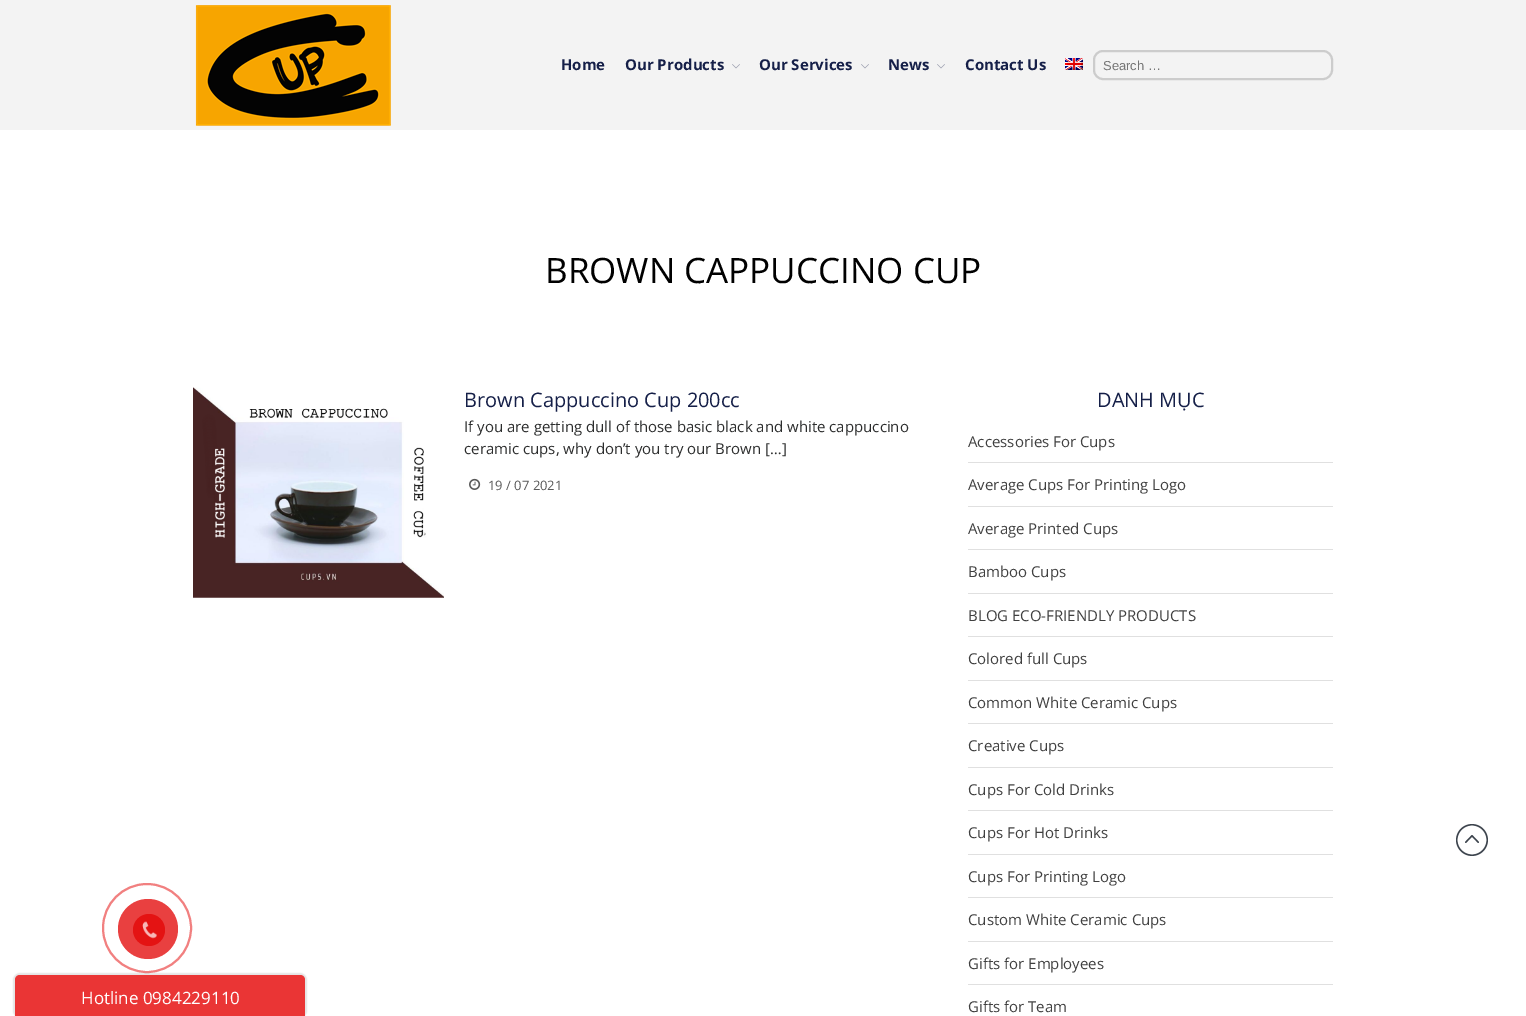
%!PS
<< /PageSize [1526 1016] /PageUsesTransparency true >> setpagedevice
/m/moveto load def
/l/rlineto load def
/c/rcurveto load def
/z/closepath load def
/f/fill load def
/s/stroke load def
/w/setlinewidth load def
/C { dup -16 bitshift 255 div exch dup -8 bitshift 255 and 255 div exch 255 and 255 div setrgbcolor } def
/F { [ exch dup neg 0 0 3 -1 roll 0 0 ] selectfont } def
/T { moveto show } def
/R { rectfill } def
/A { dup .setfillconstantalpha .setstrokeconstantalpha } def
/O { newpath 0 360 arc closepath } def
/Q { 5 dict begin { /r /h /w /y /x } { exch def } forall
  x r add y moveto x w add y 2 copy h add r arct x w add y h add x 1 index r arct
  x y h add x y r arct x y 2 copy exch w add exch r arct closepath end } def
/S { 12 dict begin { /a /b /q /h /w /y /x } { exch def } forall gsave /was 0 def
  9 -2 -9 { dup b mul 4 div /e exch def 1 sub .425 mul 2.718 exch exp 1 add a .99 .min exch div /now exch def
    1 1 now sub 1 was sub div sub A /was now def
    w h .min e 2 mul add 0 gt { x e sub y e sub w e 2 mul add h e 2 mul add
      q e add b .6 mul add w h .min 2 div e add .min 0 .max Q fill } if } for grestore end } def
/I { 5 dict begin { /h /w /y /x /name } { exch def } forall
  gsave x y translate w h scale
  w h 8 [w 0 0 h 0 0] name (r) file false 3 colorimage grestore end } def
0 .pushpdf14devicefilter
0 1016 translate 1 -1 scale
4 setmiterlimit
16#FFFFFF C
0 0 1526 1016 R
16#F18080 C
2 w
147 928 44 O s
16#E94040 C
148 929 30 O f
16#E41313 C
149 930 16 O f
(1.rgb) 142 921 15 18 I
16#F3F3F3 C
0 0 1526 130 R
(2.rgb) 195 5 196 121 I
/OpenSans-Bold 15 F
16#151F48 C
(Home) 561 70 T
(Our Products) 625 70 T
(3.rgb) 732 64 8 5 I
(Our Services) 759 70 T
(3.rgb) 861 64 8 5 I
(News) 888 70 T
(3.rgb) 937 64 8 5 I
(Contact Us) 965 70 T
(4.rgb) 1065 58 18 12 I
16#CCCCCC C
1094 51 238 28 9 Q s
/LiberationSans-Regular 13 F
16#757575 C
(Search …) 1103 70 T
/OpenSans-Regular 35 F
16#000000 C
(BROWN CAPPUCCINO CUP) 545 283 T
(5.rgb) 193 387 251 211 I
/OpenSans-Regular 20 F
16#151F48 C
(Brown Cappuccino Cup 200cc) 464 407 T
/OpenSans-Regular 15 F
16#2C2D2D C
(If you are getting dull of those basic black and white cappuccino) 464 432 T
(ceramic cups, why don’t you try our Brown […]) 464 454 T
(6.rgb) 469 478 12 12 I
/OpenSans-Regular 13 F
16#595959 C
(19 / 07 2021) 488 490 T
/OpenSans-Regular 20 F
16#151F48 C
(DANH MỤC) 1097 407 T
16#E0E0E0 C
968 462 365 1 R
/OpenSans-Regular 15 F
16#404040 C
(Accessories For Cups) 968 447 T
16#E0E0E0 C
968 506 365 1 R
16#404040 C
(Average Cups For Printing Logo) 968 490 T
16#E0E0E0 C
968 549 365 1 R
16#404040 C
(Average Printed Cups) 968 534 T
16#E0E0E0 C
968 593 365 1 R
16#404040 C
(Bamboo Cups) 968 577 T
16#E0E0E0 C
968 636 365 1 R
16#404040 C
(BLOG ECO-FRIENDLY PRODUCTS) 968 621 T
16#E0E0E0 C
968 680 365 1 R
16#404040 C
(Colored full Cups) 968 664 T
16#E0E0E0 C
968 723 365 1 R
16#404040 C
(Common White Ceramic Cups) 968 708 T
16#E0E0E0 C
968 767 365 1 R
16#404040 C
(Creative Cups) 968 751 T
16#E0E0E0 C
968 810 365 1 R
16#404040 C
(Cups For Cold Drinks) 968 795 T
16#E0E0E0 C
968 854 365 1 R
16#404040 C
(Cups For Hot Drinks) 968 838 T
16#E0E0E0 C
968 897 365 1 R
16#404040 C
(Cups For Printing Logo) 968 882 T
16#E0E0E0 C
968 941 365 1 R
16#404040 C
(Custom White Ceramic Cups) 968 925 T
16#E0E0E0 C
968 984 365 1 R
16#404040 C
(Gifts for Employees) 968 969 T
(Gifts for Team) 968 1012 T
(7.rgb) 1456 824 32 32 I
16#000000 C
13 973 294 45 7 .5 .1 S
16#EA3535 C
20 975 m 280 0 l 3 0 5 2 5 5 c 0 36 l -290 0 l 0 -36 l 0 -3 2 -5 5 -5 c z f
/OpenSans-Regular 17 F
16#FFFFFF C
(Hotline 0984229110) 81 1004 T
.poppdf14devicefilter showpage
